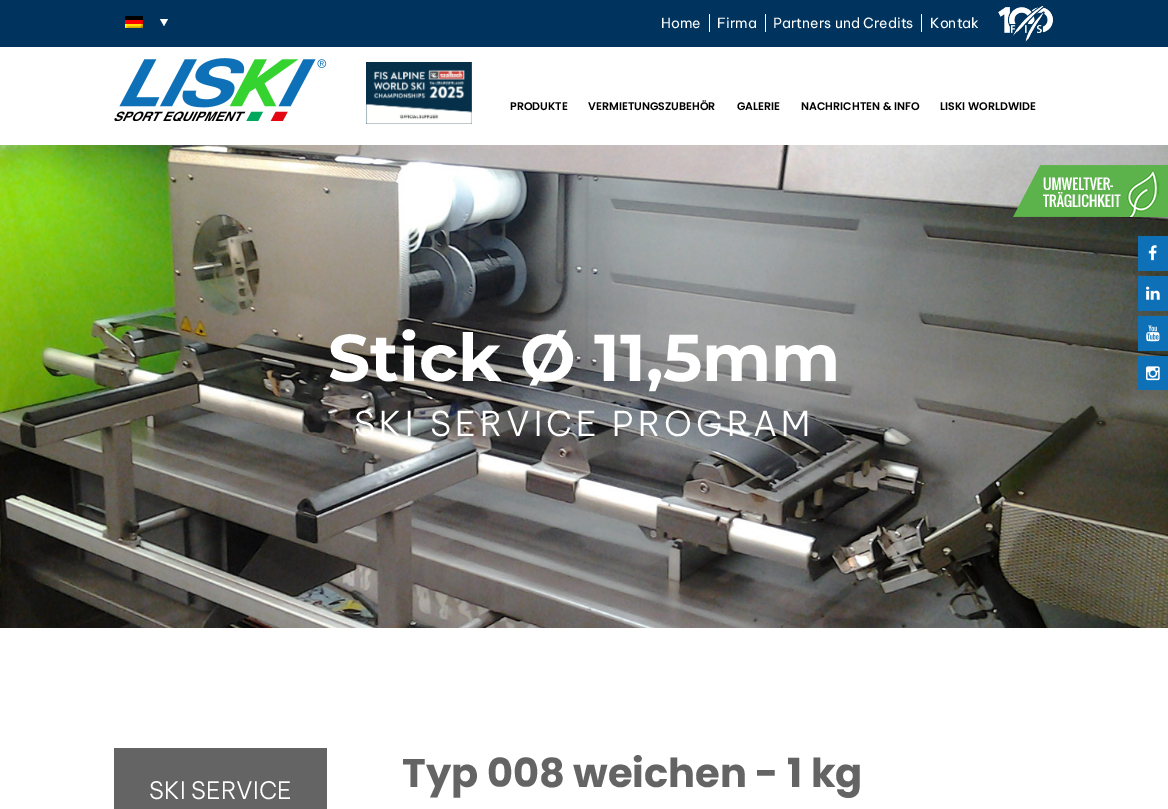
%!PS
<< /PageSize [1168 809] >> setpagedevice
/m/moveto load def
/l/rlineto load def
/z/closepath load def
/f/fill load def
/C { dup -16 bitshift 255 div exch dup -8 bitshift 255 and 255 div exch 255 and 255 div setrgbcolor } def
/F { [ exch dup neg 0 0 3 -1 roll 0 0 ] selectfont } def
/T { moveto show } def
/R { rectfill } def
/I { 5 dict begin { /h /w /y /x /name } { exch def } forall
  gsave x y translate w h scale
  w h 8 [w 0 0 h 0 0] name (r) file false 3 colorimage grestore end } def
0 809 translate 1 -1 scale
4 setmiterlimit
16#FFFFFF C
0 0 1168 809 R
16#00345E C
0 0 1168 47 R
(1.rgb) 125 16 18 12 I
16#FFFFFF C
160 19 m 8 0 l -4 7 l z f
/BeVietnamPro-Regular 14 F
(Home) 661 28 T
709 14 1 18 R
(Firma) 717 28 T
765 14 1 18 R
(Partners und Credits) 773 28 T
921 14 1 18 R
(Kontak) 930 28 T
(2.rgb) 998 6 55 36 I
(3.rgb) 114 58 213 63 I
(4.rgb) 366 62 106 62 I
/Poppins-SemiBold 11 F
16#000000 C
(PRODUKTE) 510 110 T
(VERMIETUNGSZUBEHÖR) 588 110 T
(GALERIE) 737 110 T
(NACHRICHTEN & INFO) 801 110 T
(LISKI WORLDWIDE) 940 110 T
(6.rgb) 0 145 1168 483 I
(5.rgb) 1013 165 155 52 I
/Montserrat-Bold 66 F
16#FFFFFF C
(Stick Ø 11,5mm) 328 381 T
/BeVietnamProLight-Light 34 F
354 436 m 4 0 (SKI SERVICE PROGRAM) ashow
16#0E71B8 C
1138 236 30 35 R
(7.rgb) 1148 245 9 16 I
1138 276 30 35 R
(8.rgb) 1146 286 14 14 I
1138 316 30 35 R
(9.rgb) 1146 325 14 17 I
1138 356 30 34 R
(10.rgb) 1146 366 14 15 I
16#646464 C
114 748 213 61 R
/BeVietnamProLight-Light 24 F
16#FFFFFF C
(SKI SERVICE) 149 799 T
/Poppins-Bold 40 F
16#646464 C
(Typ 008 weichen - 1 kg) 402 787 T
showpage
